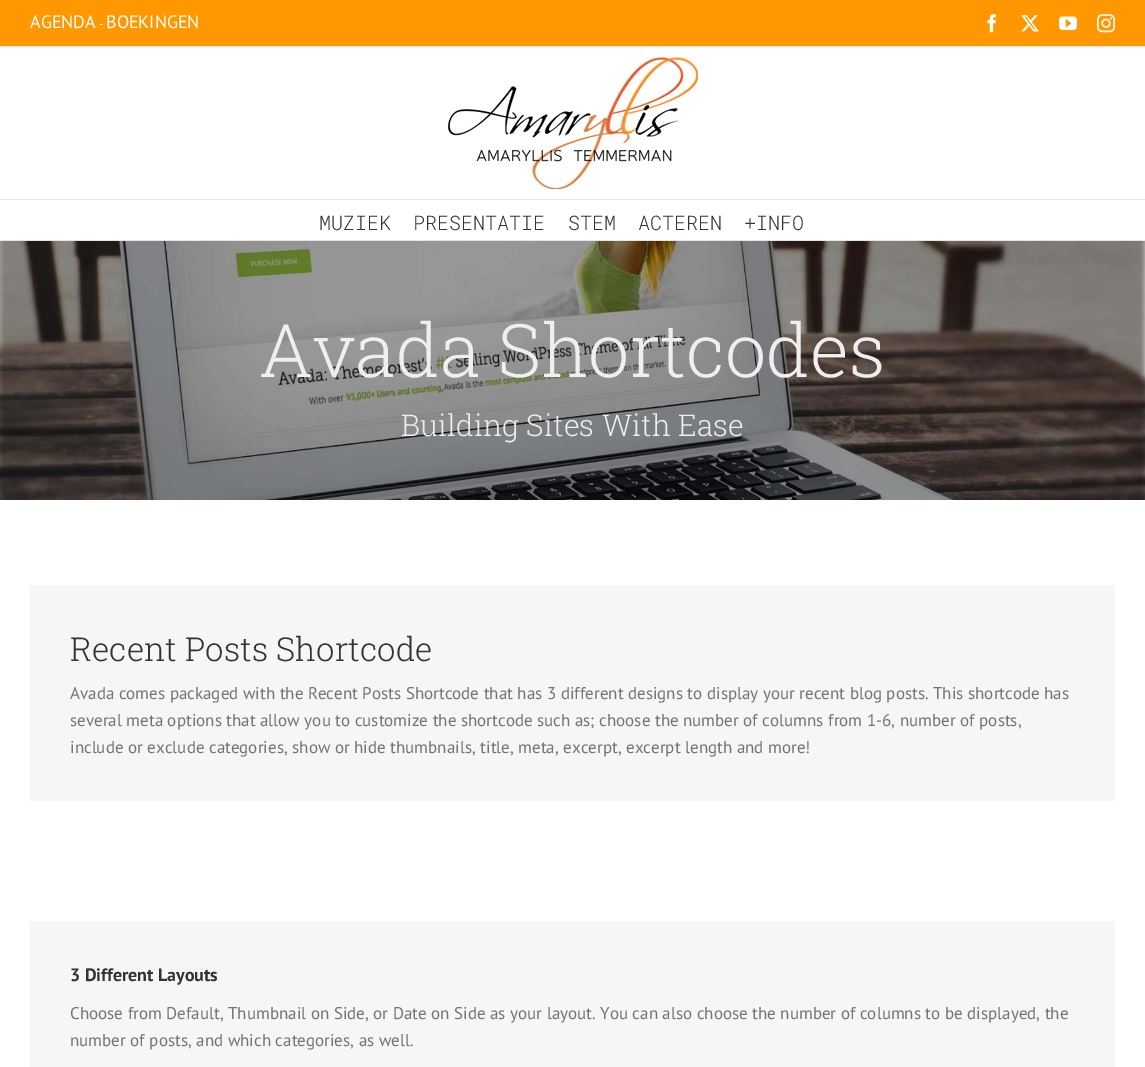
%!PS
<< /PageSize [1145 1067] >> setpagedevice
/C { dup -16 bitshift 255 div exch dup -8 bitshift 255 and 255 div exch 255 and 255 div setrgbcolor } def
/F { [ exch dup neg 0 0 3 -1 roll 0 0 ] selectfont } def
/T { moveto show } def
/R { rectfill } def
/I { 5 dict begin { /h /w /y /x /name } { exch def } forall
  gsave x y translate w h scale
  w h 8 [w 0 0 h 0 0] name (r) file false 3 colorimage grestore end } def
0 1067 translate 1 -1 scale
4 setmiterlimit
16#FFFFFF C
0 0 1145 1067 R
16#FF9800 C
0 0 1145 46 R
16#E5E5E5 C
0 46 1145 1 R
/PTSans-Regular 18 F
16#FFFFFF C
(AGENDA) 30 28 T
/PTSans-Regular 12 F
(-) 99 28 T
/PTSans-Regular 18 F
(BOEKINGEN) 106 28 T
(1.rgb) 987 14 9 19 I
(2.rgb) 1021 15 18 17 I
(3.rgb) 1059 16 18 14 I
(4.rgb) 1097 14 18 19 I
16#E5E5E5 C
0 199 1145 1 R
(5.rgb) 448 57 250 132 I
0 240 1145 1 R
/RobotoMono-Light 20 F
16#333333 C
(MUZIEK) 319 230 T
(PRESENTATIE) 413 230 T
(STEM) 568 230 T
(ACTEREN) 638 230 T
(+INFO) 744 230 T
(6.rgb) 0 241 1145 259 I
/RobotoSlab-Light 74 F
16#EFEFEF C
(Avada Shortcodes) 259 377 T
/RobotoSlab-Light 30 F
(Building Sites With Ease) 401 436 T
16#F6F6F6 C
30 585 1085 216 R
/RobotoSlab-Light 33 F
16#333333 C
(Recent Posts Shortcode) 70 661 T
/PTSans-Regular 17 F
16#747474 C
(Avada comes packaged with the Recent Posts Shortcode that has 3 different designs to display your recent blog posts. This shortcode has) 70 699 T
(several meta options that allow you to customize the shortcode such as; choose the number of columns from 1-6, number of posts,) 70 726 T
(include or exclude categories, show or hide thumbnails, title, meta, excerpt, excerpt length and more!) 70 753 T
16#F6F6F6 C
30 921 1085 146 R
/PTSans-Bold 18 F
16#333333 C
(3 Different Layouts) 70 981 T
/PTSans-Regular 17 F
16#747474 C
(Choose from Default, Thumbnail on Side, or Date on Side as your layout. You can also choose the number of columns to be displayed, the) 70 1019 T
(number of posts, and which categories, as well.) 70 1046 T
showpage
